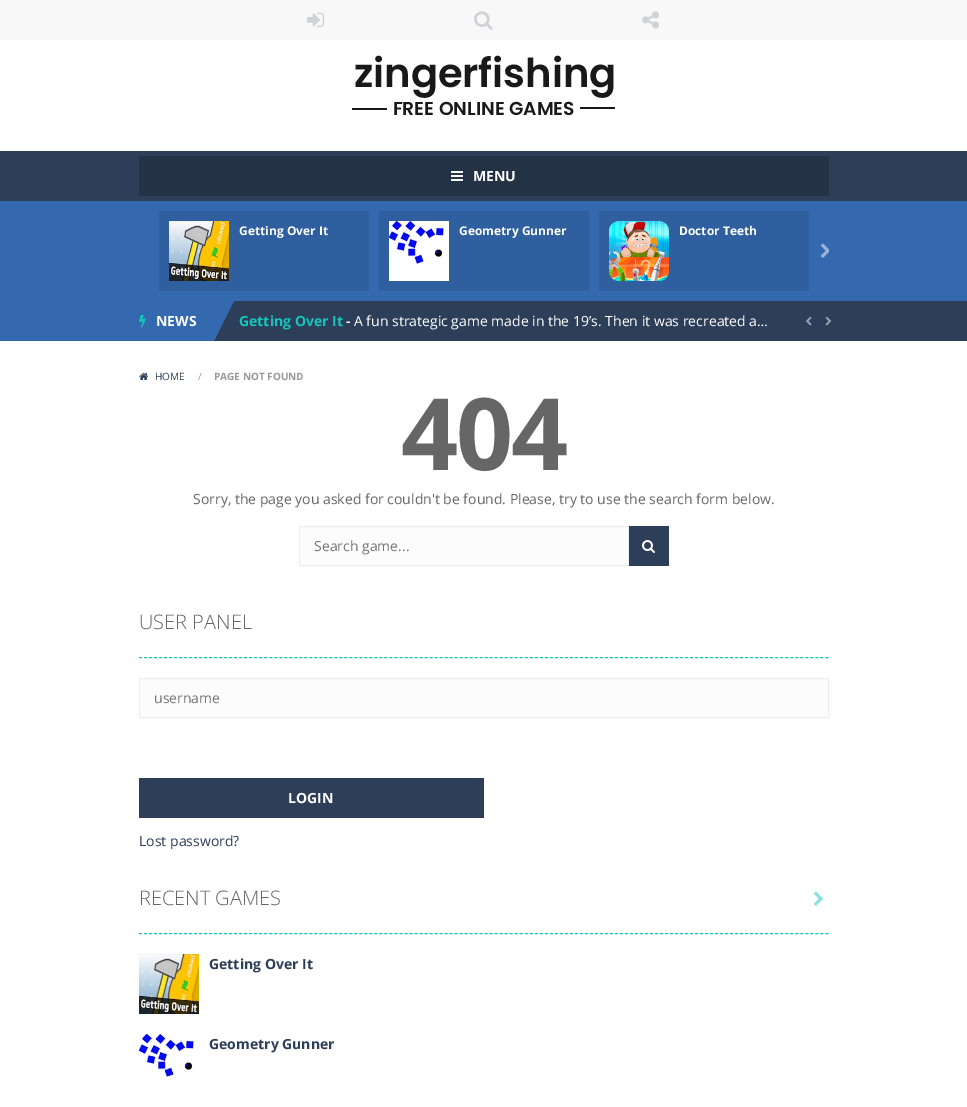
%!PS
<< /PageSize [967 1107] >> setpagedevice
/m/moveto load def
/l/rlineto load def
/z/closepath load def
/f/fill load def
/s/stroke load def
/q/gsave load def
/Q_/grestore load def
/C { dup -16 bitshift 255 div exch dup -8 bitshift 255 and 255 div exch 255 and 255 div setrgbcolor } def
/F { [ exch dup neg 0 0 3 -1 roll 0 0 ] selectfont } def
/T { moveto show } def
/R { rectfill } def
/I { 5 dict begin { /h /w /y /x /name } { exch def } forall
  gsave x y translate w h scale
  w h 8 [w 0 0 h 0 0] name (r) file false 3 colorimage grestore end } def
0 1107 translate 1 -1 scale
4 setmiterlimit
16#F8F8F8 C
0 0 967 1107 R
(1.rgb) 307 12 18 15 I
(2.rgb) 474 11 19 19 I
(3.rgb) 642 11 17 18 I
16#FFFFFF C
0 40 967 111 R
(4.rgb) 352 55 263 61 I
16#2D3E58 C
0 151 967 50 R
16#243246 C
139 156 690 40 R
(5.rgb) 451 171 12 10 I
/OpenSans-Bold 14 F
16#FFFFFF C
(MENU) 473 181 T
16#3469AF C
0 201 967 100 R
16#2F5F9E C
159 211 210 80 R
(6.rgb) 169 221 60 60 I
/OpenSans-Bold 12 F
16#FFFFFF C
(Getting Over It) 239 235 T
16#2F5F9E C
379 211 210 80 R
(7.rgb) 389 221 60 60 I
16#FFFFFF C
(Geometry Gunner) 459 235 T
16#2F5F9E C
599 211 210 80 R
(8.rgb) 609 221 60 60 I
16#FFFFFF C
(Doctor Teeth) 679 235 T
(9.rgb) 820 243 9 15 I
16#2D3E58 C
214 301 753 40 R
16#3469AF C
0 301 214 40 R
(10.rgb) 139 315 7 13 I
/OpenSans-Bold 14 F
16#FFFFFF C
(NEWS) 156 326 T
16#3469AF C
214 301 m 20 0 l -20 40 l z f
16#16C4BB C
(Getting Over It) 239 326 T
16#FFFFFF C
(-) 346 326 T
/OpenSans-Regular 14 F
(A fun strategic game made in the 19’s. Then it was recreated a…) 354 326 T
(11.rgb) 806 316 6 10 I
(12.rgb) 825 316 7 10 I
0 341 967 766 R
(13.rgb) 139 372 10 8 I
/OpenSans-Regular 10 F
16#2D3E58 C
(HOME) 155 380 T
16#999999 C
(/) 198 380 T
/OpenSans-Bold 10 F
(PAGE NOT FOUND) 214 380 T
/OpenSans-Bold 100 F
16#666666 C
401 470 m -2 0 (404) ashow
/OpenSans-Regular 14 F
(Sorry, the page you asked for couldn't be found. Please, try to use the search form below.) 193 504 T
16#FCFCFC C
299.5 526.5 m 329 0 l 0 39 l -329 0 l z q f Q_
16#EEEEEE C
s
16#757575 C
(Search game...) 314 551 T
16#2D3E58 C
629 526 40 40 R
(14.rgb) 642 540 13 13 I
16#16C4BB C
[3 2.01] 0 setdash
139 657.5 m 690 0 l s
/OpenSans-Light 20 F
16#666666 C
(USER PANEL) 139 629 T
16#FCFCFC C
139.5 678.5 m 689 0 l 0 39 l -689 0 l z q f Q_
16#EEEEEE C
[] 0 setdash
s
/OpenSans-Regular 14 F
16#757575 C
(username) 154 703 T
16#2D3E58 C
139 778 345 40 R
/OpenSans-Bold 14 F
16#FFFFFF C
(LOGIN) 288 803 T
/OpenSans-Regular 14 F
16#2D3E58 C
(Lost password?) 139 846 T
16#16C4BB C
[3 2.01] 0 setdash
139 933.5 m 690 0 l s
/OpenSans-Light 20 F
16#666666 C
(RECENT GAMES) 139 905 T
(15.rgb) 813 891 10 15 I
(6.rgb) 139 954 60 60 I
(16.rgb) 139 954 60 59 I
/OpenSans-Bold 14 F
16#2D3E58 C
(Getting Over It) 209 969 T
(17.rgb) 139 1034 55 46 I
(Geometry Gunner) 209 1049 T
showpage
